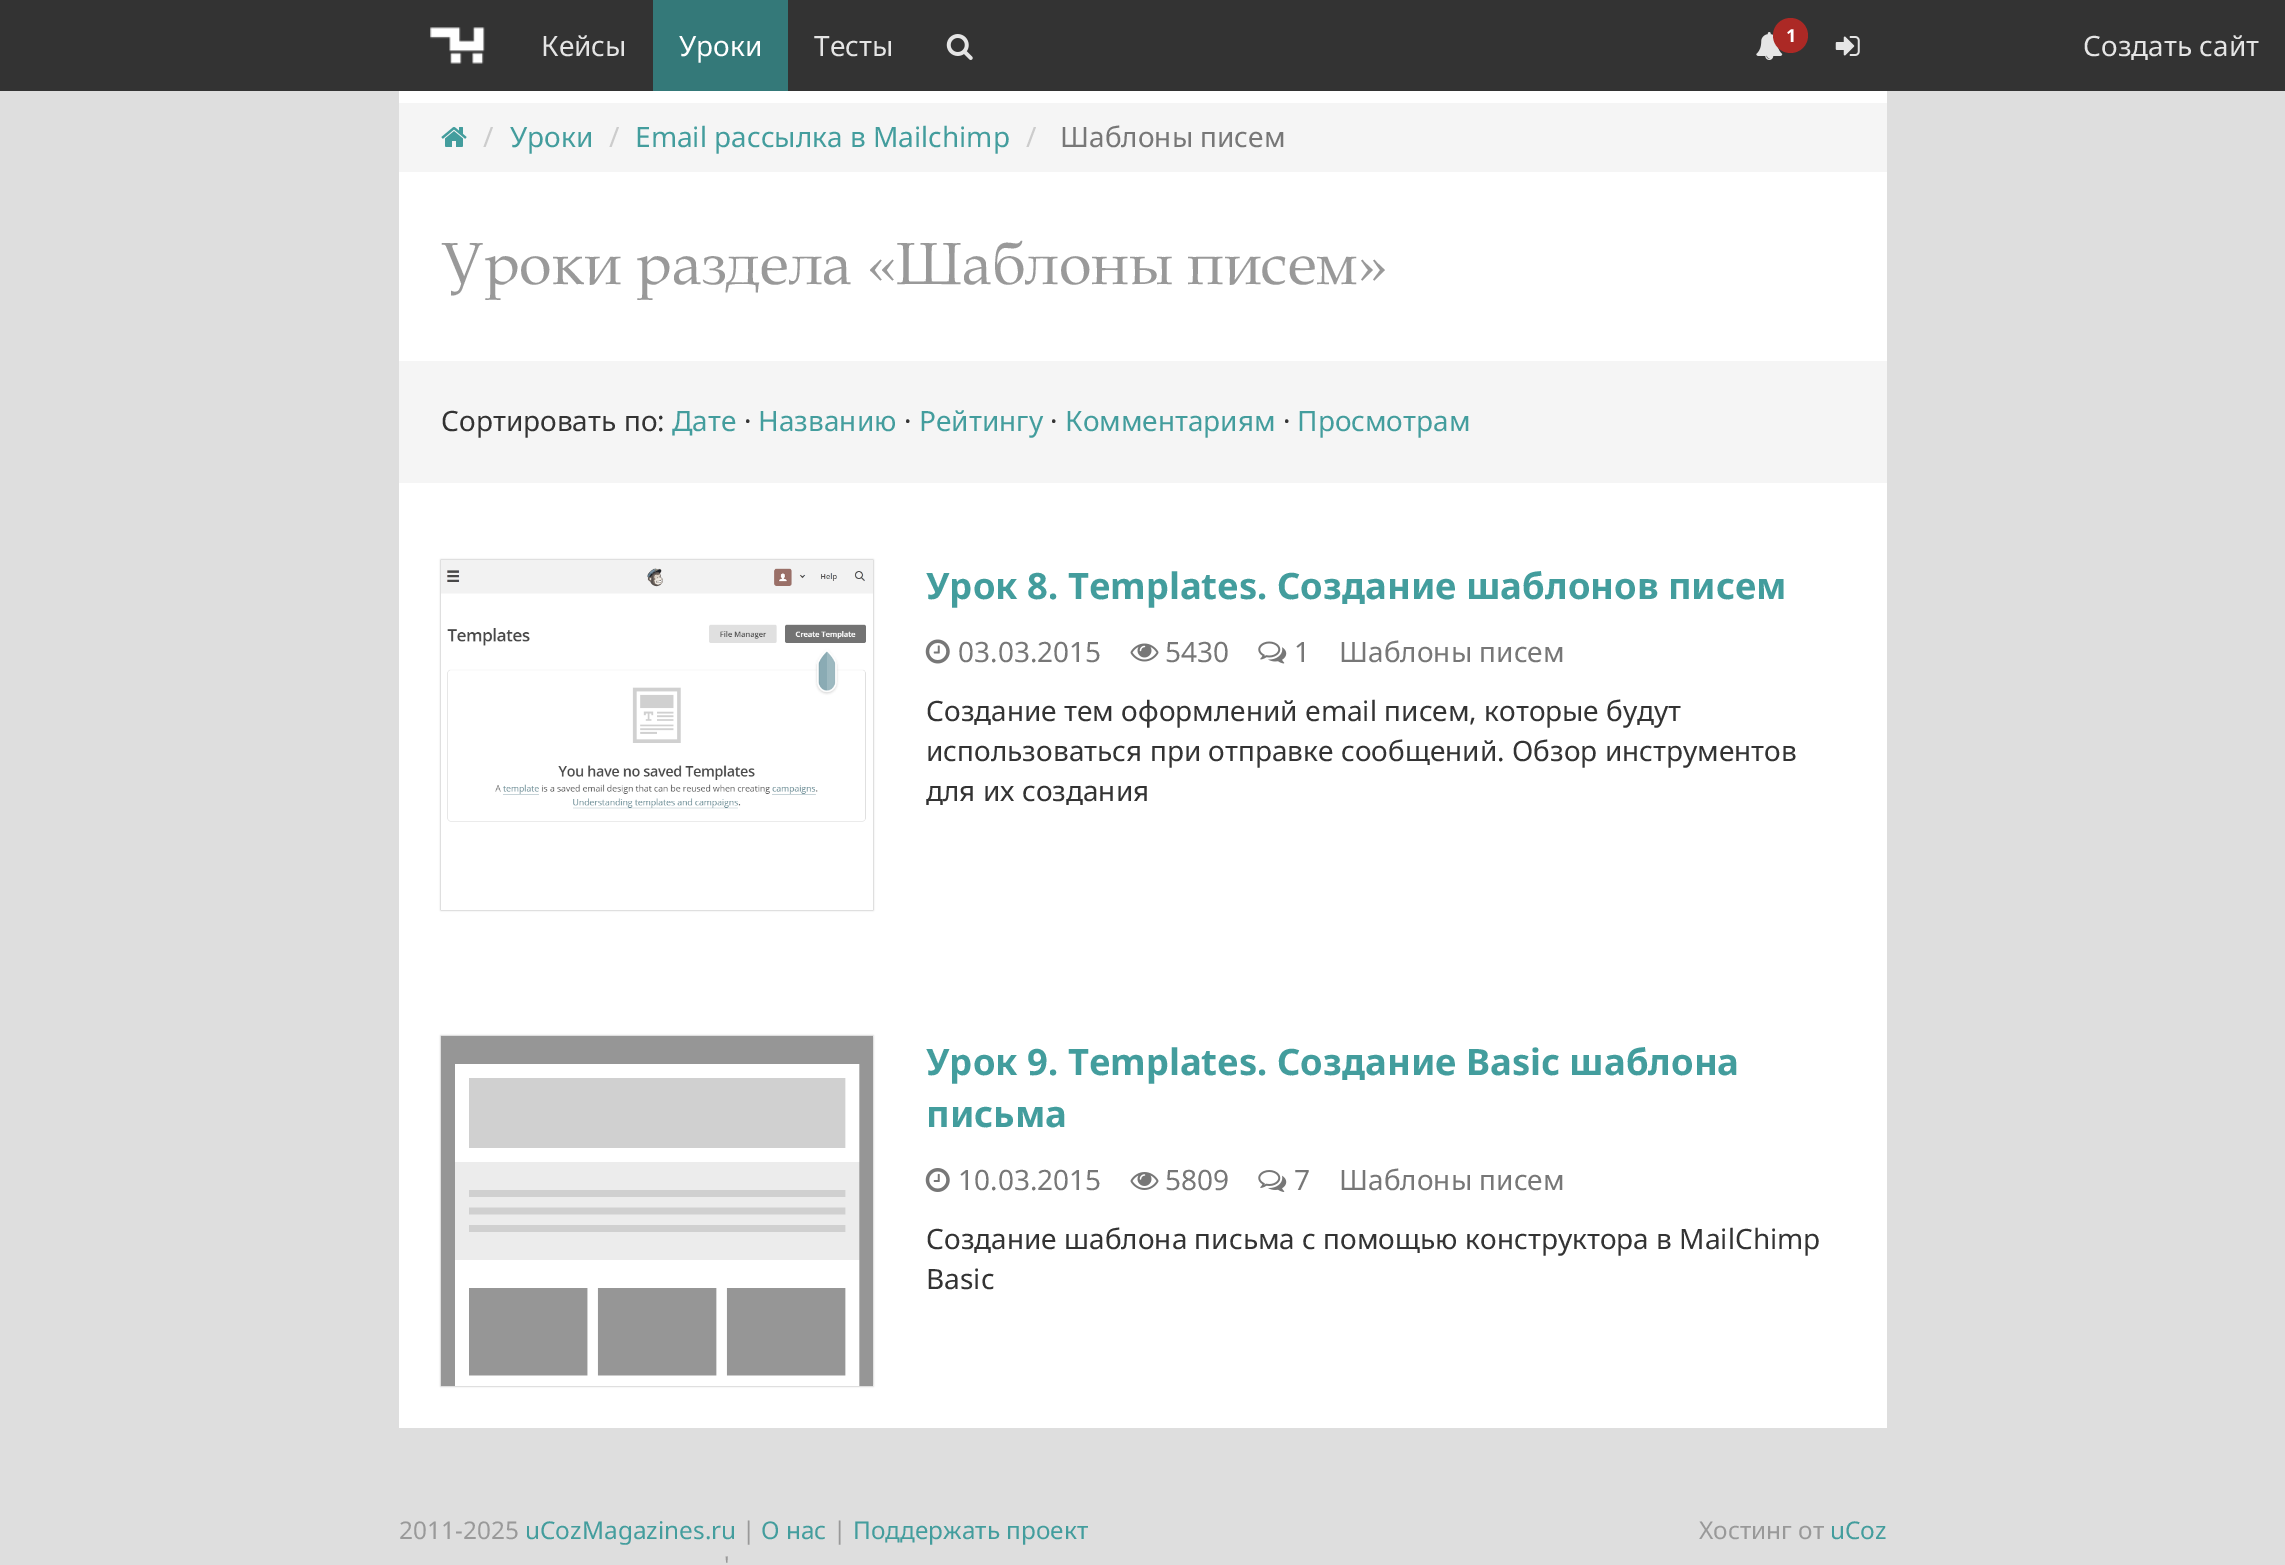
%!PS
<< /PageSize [2285 1565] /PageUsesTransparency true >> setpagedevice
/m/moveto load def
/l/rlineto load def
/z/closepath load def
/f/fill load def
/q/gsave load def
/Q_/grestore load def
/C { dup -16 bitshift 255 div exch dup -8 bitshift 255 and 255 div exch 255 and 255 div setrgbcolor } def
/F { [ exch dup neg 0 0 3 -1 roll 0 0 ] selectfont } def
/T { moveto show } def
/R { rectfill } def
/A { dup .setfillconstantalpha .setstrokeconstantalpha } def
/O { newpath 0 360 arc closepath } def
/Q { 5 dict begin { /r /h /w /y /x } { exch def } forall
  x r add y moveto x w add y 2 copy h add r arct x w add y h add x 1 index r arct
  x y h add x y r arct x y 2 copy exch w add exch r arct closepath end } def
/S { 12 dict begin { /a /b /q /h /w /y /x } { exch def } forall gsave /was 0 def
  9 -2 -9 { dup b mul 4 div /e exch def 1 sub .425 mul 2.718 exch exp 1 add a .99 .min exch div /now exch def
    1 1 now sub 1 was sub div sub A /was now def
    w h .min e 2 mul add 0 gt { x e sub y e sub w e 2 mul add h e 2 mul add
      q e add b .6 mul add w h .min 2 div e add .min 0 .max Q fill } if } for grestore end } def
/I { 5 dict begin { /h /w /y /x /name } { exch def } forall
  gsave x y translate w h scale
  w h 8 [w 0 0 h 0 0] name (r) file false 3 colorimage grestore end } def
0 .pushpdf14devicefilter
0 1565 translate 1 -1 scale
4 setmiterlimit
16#DEDEDE C
0 0 2285 1565 R
16#333333 C
0 0 2285 91 R
(1.rgb) 430 27 55 37 I
/NotoSans-Regular 28 F
16#E5E5E5 C
(Кейсы) 541 56 T
16#347979 C
653 0 135 91 R
16#FFFFFF C
(Уроки) 679 56 T
16#E5E5E5 C
(Тесты) 814 56 T
(2.rgb) 946 34 27 26 I
(3.rgb) 1756 32 27 28 I
16#AC2925 C
1790.5 35.5 17.5 O f
/NotoSans-Bold 18 F
16#FFFFFF C
(1) 1786 42 T
(4.rgb) 1835 36 25 20 I
/NotoSans-Regular 28 F
16#E5E5E5 C
(Создать сайт) 2083 56 T
16#FFFFFF C
399 91 1488 1337 R
16#F5F5F5 C
399 103 1488 69 R
(5.rgb) 441 127 26 20 I
16#CCCCCC C
(/) 483 147 T
16#439D9D C
(Уроки) 510 147 T
16#CCCCCC C
(/) 609 147 T
16#439D9D C
(Email рассылка в Mailchimp) 635 147 T
16#CCCCCC C
(/) 1026 147 T
16#777777 C
(Шаблоны писем) 1060 147 T
/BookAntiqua-Regular 59.5 F
16#999999 C
(Уроки раздела «Шаблоны писем») 441 284 T
16#F5F5F5 C
399 361 1488 122 R
/NotoSans-Regular 28 F
16#333333 C
(Сортировать по:) 441 431 T
16#439D9D C
(Дате) 672 431 T
16#333333 C
(·) 744 431 T
16#439D9D C
(Названию) 758 431 T
16#333333 C
(·) 904 431 T
16#439D9D C
(Рейтингу) 919 431 T
16#333333 C
(·) 1050 431 T
16#439D9D C
(Комментариям) 1065 431 T
16#333333 C
(·) 1283 431 T
16#439D9D C
(Просмотрам) 1297 431 T
q
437 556 m 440 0 l 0 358 l -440 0 l z 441 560 m 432 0 l 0 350 l -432 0 l z eoclip newpath
16#999999 C
441 560 432 350 0 1 1 S
Q_
(6.rgb) 441 560 432 262 I
/NotoSans-Bold 36.4 F
(Урок 8. Templates. Создание шаблонов писем) 926 599 T
(7.rgb) 925 639 25 25 I
/NotoSans-Regular 28 F
16#777777 C
(03.03.2015) 958 662 T
(8.rgb) 1130 643 29 19 I
(5430) 1165 662 T
(9.rgb) 1258 641 29 23 I
(1    Шаблоны писем) 1294 662 T
16#333333 C
(Создание тем оформлений email писем, которые будут) 926 721 T
(использоваться при отправке сообщений. Обзор инструментов) 926 761 T
(для их создания) 926 801 T
q
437 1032 m 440 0 l 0 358 l -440 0 l z 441 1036 m 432 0 l 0 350 l -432 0 l z eoclip newpath
16#999999 C
441 1036 432 350 0 1 1 S
Q_
(10.rgb) 441 1036 433 350 I
/NotoSans-Bold 36.4 F
16#439D9D C
(Урок 9. Templates. Создание Basic шаблона) 926 1075 T
(письма) 926 1127 T
(11.rgb) 925 1168 25 24 I
/NotoSans-Regular 28 F
16#777777 C
(10.03.2015) 958 1190 T
(12.rgb) 1130 1172 29 18 I
(5809) 1165 1190 T
(13.rgb) 1258 1170 29 22 I
(7    Шаблоны писем) 1294 1190 T
16#333333 C
(Создание шаблона письма с помощью конструктора в MailChimp) 926 1249 T
(Basic) 926 1289 T
/NotoSans-Regular 24.4 F
16#999999 C
(2011-2025) 399 1539 T
16#439D9D C
(uCozMagazines.ru) 525 1539 T
16#999999 C
(|) 742 1539 T
16#439D9D C
(О нас) 761 1539 T
16#999999 C
(|) 833 1539 T
16#439D9D C
(Поддержать проект) 853 1539 T
16#999999 C
(') 724 1574 T
(Хостинг от) 1699 1539 T
16#439D9D C
(uCoz) 1830 1539 T
.poppdf14devicefilter showpage
